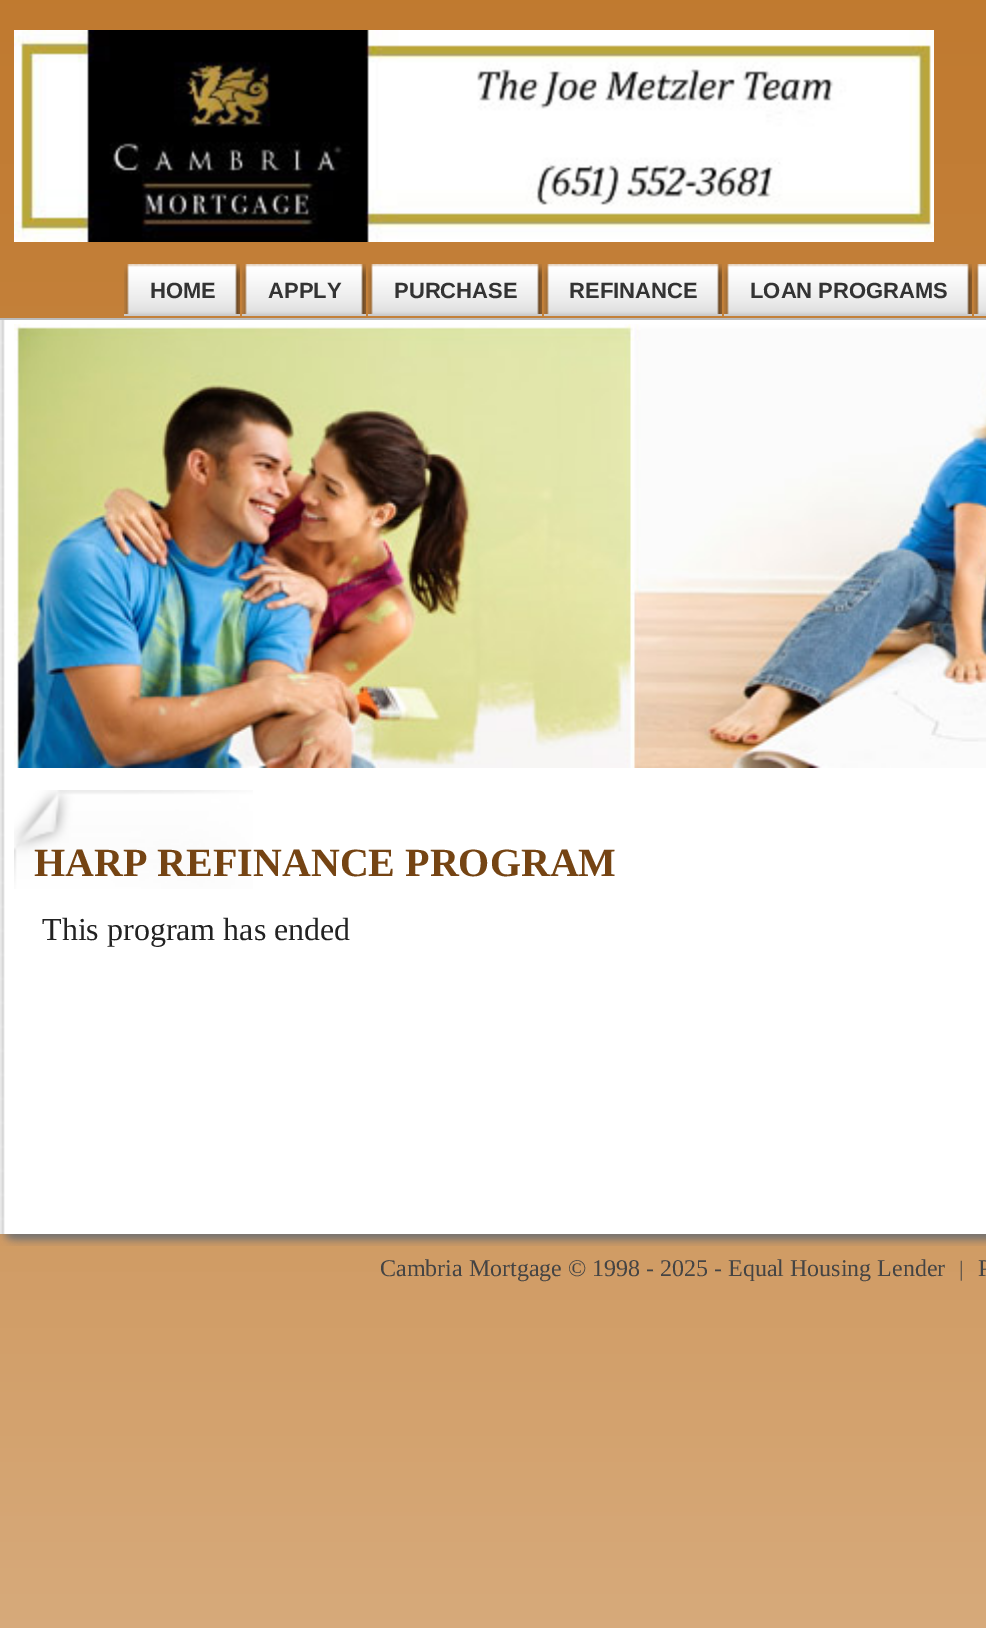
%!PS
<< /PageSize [986 1628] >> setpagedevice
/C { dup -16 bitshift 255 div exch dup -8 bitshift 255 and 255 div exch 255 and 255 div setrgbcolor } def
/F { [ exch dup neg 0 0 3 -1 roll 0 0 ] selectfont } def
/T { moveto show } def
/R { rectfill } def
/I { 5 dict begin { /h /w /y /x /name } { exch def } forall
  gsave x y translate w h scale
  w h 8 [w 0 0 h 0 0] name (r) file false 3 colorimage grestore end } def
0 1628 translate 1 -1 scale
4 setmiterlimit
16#FFFFFF C
0 0 986 1628 R
(1.rgb) 0 0 986 1628 I
(2.rgb) 14 30 920 212 I
(3.rgb) 124 264 116 52 I
(4.rgb) 124 264 5 50 I
/LiberationSans-Bold 22 F
16#333333 C
(HOME) 150 298 T
(5.rgb) 234 264 6 50 I
(6.rgb) 242 264 124 52 I
(4.rgb) 242 264 5 50 I
(APPLY) 268 298 T
(5.rgb) 360 264 6 50 I
(7.rgb) 368 264 174 52 I
(4.rgb) 368 264 5 50 I
(PURCHASE) 394 298 T
(8.rgb) 537 264 5 50 I
(9.rgb) 544 264 178 52 I
(4.rgb) 544 264 5 50 I
(REFINANCE) 569 298 T
(5.rgb) 716 264 6 50 I
(10.rgb) 724 264 248 52 I
(4.rgb) 724 264 5 50 I
(LOAN PROGRAMS) 750 298 T
(5.rgb) 966 264 6 50 I
(11.rgb) 974 264 12 52 I
(4.rgb) 974 264 5 50 I
16#BBBBBB C
0 318 986 2 R
16#FFFFFF C
5 320 981 468 R
(12.rgb) 0 320 5 468 I
(13.rgb) 14 324 972 444 I
(14.rgb) 0 788 986 446 I
(15.rgb) 14 790 239 99 I
/LiberationSerif-Bold 40 F
16#754413 C
(HARP REFINANCE PROGRAM) 34 876 T
/LiberationSerif-Regular 32 F
16#222222 C
(This program has ended) 42 940 T
(16.rgb) 0 1234 986 12 I
/LiberationSerif-Regular 24 F
16#444444 C
(Cambria Mortgage © 1998 - 2025 - Equal Housing Lender) 380 1276 T
/LiberationSerif-Regular 22 F
(|) 959 1276 T
/LiberationSerif-Regular 24 F
(P) 978 1276 T
showpage
